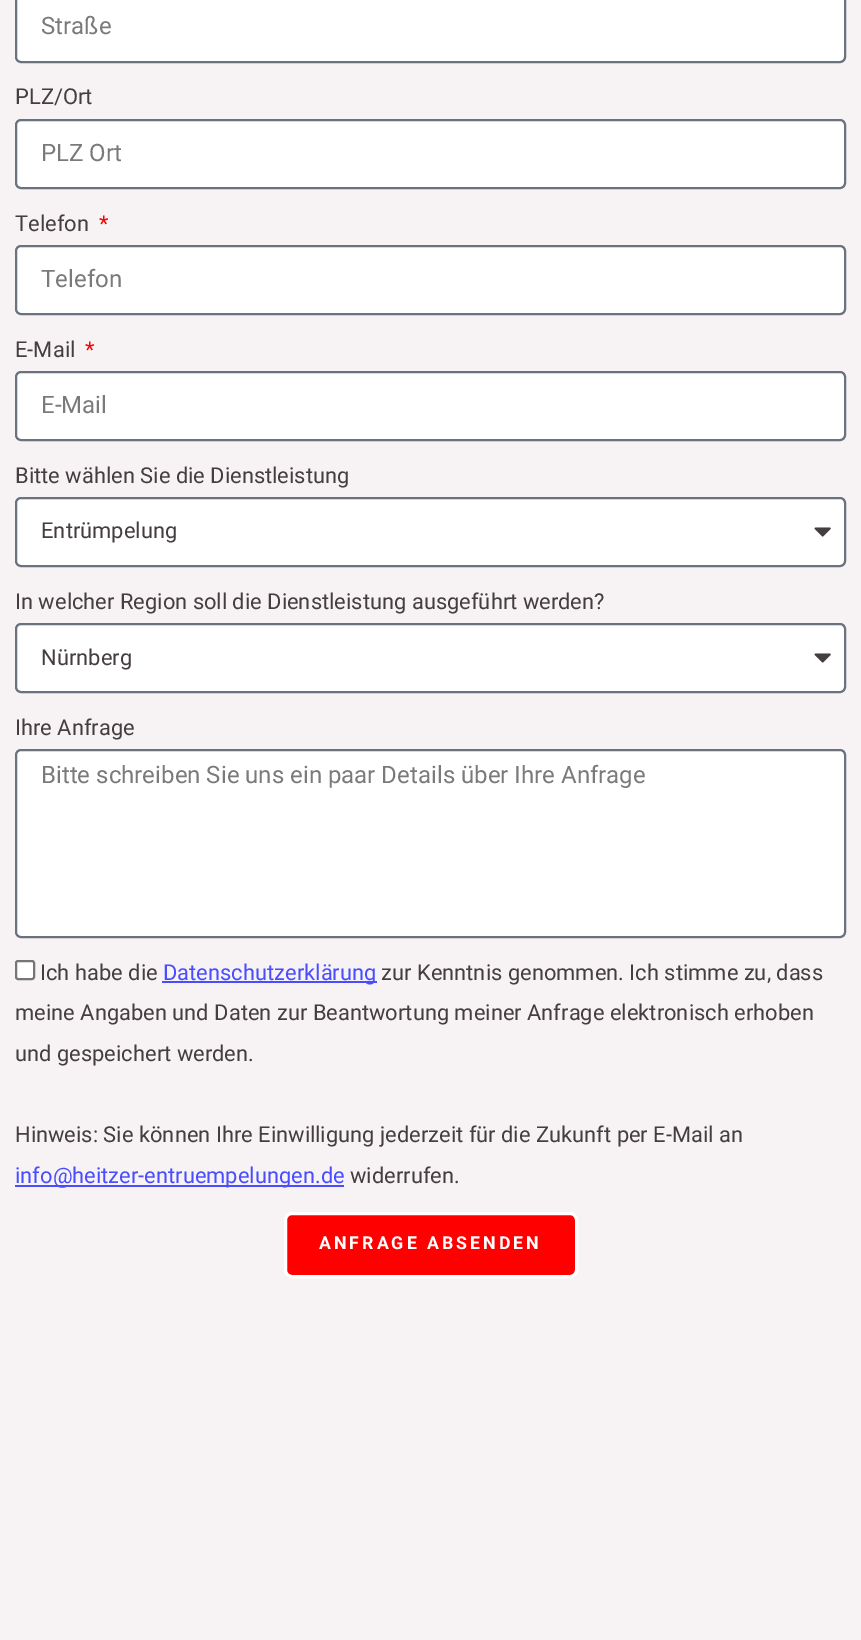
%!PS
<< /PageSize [861 1640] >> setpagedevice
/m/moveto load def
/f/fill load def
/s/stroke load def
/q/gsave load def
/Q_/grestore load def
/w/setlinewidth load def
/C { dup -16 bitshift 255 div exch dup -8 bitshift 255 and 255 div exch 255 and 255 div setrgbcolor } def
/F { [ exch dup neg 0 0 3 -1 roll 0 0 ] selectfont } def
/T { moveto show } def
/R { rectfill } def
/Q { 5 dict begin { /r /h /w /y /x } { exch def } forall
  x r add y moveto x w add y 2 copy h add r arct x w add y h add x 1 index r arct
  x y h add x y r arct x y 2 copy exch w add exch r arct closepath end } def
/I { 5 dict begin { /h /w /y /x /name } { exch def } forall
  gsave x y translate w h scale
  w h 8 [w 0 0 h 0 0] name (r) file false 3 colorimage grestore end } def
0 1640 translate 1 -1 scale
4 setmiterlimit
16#F7F3F5 C
0 0 861 1640 R
16#FFFFFF C
16 -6 829 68 5 Q q f Q_
16#69727D C
2 w
s
/Roboto-Regular 24 F
16#797A7C C
(Straße) 41 34 T
/Roboto-Regular 21.9 F
16#453E3E C
(PLZ/Ort) 15 104 T
16#FFFFFF C
16 120 829 68 5 Q q f Q_
16#69727D C
s
/Roboto-Regular 24 F
16#797A7C C
(PLZ Ort) 41 161 T
/Roboto-Regular 21.9 F
16#453E3E C
(Telefon) 15 231 T
16#FF0000 C
(*) 99 231 T
16#FFFFFF C
16 246 829 68 5 Q q f Q_
16#69727D C
s
/Roboto-Regular 24 F
16#797A7C C
(Telefon) 41 287 T
/Roboto-Regular 21.9 F
16#453E3E C
(E-Mail) 15 357 T
16#FF0000 C
(*) 85 357 T
16#FFFFFF C
16 372 829 68 5 Q q f Q_
16#69727D C
s
/Roboto-Regular 24 F
16#797A7C C
(E-Mail) 41 413 T
/Roboto-Regular 21.9 F
16#453E3E C
(Bitte wählen Sie die Dienstleistung) 15 483 T
16#FFFFFF C
16 498 829 68 5 Q q f Q_
16#69727D C
s
16#453E3E C
(Entrümpelung) 41 538 T
(1.rgb) 814 527 17 10 I
(In welcher Region soll die Dienstleistung ausgeführt werden?) 15 609 T
16#FFFFFF C
16 624 829 68 5 Q q f Q_
16#69727D C
s
16#453E3E C
(Nürnberg) 41 665 T
(1.rgb) 814 653 17 10 I
(Ihre Anfrage) 15 735 T
16#FFFFFF C
16 750 829 187 5 Q q f Q_
16#69727D C
s
/Roboto-Regular 24 F
16#797A7C C
(Bitte schreiben Sie uns ein paar Details über Ihre Anfrage) 41 783 T
16#FFFFFF C
16 961 18 18 2 Q q f Q_
16#767676 C
s
/Roboto-Regular 21.9 F
16#453E3E C
(Ich habe die) 40 980 T
16#494DFF C
162 981 215 2 R
(Datenschutzerklärung) 163 980 T
16#453E3E C
(zur Kenntnis genommen. Ich stimme zu, dass) 381 980 T
(meine Angaben und Daten zur Beantwortung meiner Anfrage elektronisch erhoben) 15 1020 T
(und gespeichert werden.) 15 1061 T
(Hinweis: Sie können Ihre Einwilligung jederzeit für die Zukunft per E-Mail an) 15 1142 T
16#494DFF C
15 1185 329 2 R
(info@heitzer-entruempelungen.de) 15 1183 T
16#453E3E C
(widerrufen.) 350 1183 T
16#FF0000 C
285.5 1213.5 291 63 6.5 Q q f Q_
16#FFFFFF C
3 w
s
/Roboto-Bold 17.75 F
319 1249 m 3 0 (ANFRAGE ABSENDEN) ashow
showpage
